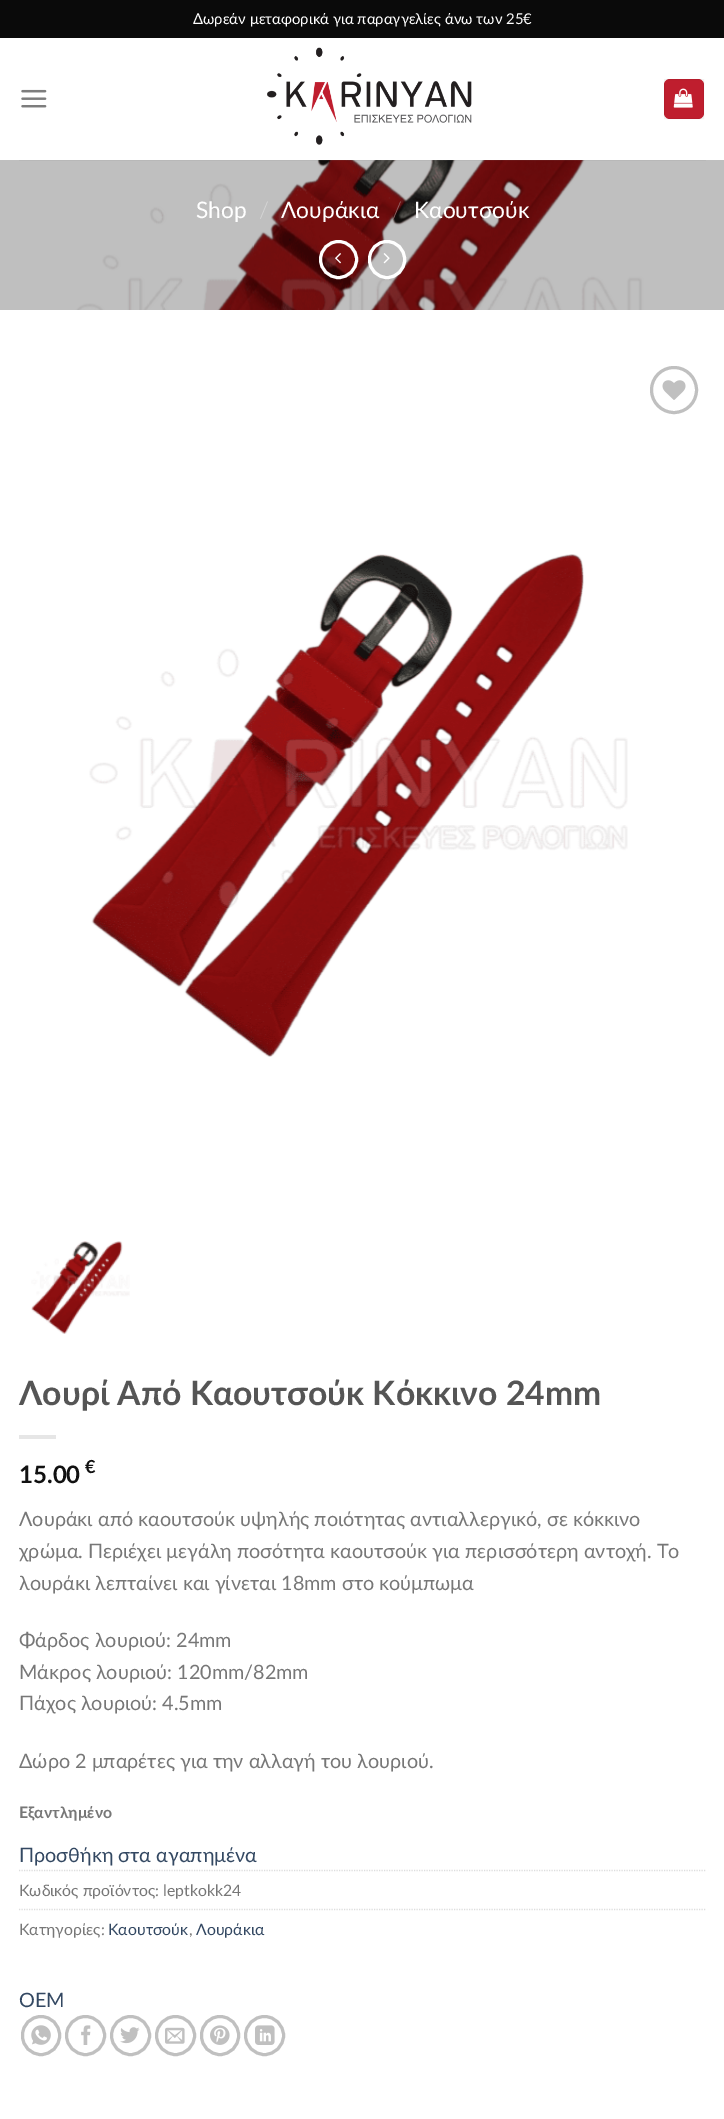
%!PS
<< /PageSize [724 2119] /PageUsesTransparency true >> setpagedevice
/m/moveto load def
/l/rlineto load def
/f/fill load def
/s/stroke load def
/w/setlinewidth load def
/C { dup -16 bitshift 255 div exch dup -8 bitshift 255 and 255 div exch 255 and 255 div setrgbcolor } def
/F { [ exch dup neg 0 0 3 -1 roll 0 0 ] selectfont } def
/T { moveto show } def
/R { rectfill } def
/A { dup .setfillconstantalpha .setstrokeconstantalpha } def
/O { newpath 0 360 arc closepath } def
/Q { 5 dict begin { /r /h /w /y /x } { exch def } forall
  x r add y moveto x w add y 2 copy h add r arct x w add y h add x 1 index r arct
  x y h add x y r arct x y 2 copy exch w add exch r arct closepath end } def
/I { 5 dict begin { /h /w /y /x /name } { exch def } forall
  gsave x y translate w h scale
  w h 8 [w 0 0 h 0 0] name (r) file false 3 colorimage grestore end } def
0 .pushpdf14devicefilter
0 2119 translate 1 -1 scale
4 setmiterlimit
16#FFFFFF C
0 0 724 2119 R
16#0A0A0A C
0 0 724 38 R
/Lato-Regular 14.85 F
16#FFFFFF C
(Δωρεάν μεταφορικά για παραγγελίες άνω των 25€) 193 24 T
(1.rgb) 21 89 26 19 I
(2.rgb) 267 47 205 98 I
16#BF1E2E C
664 79 40 40 6 Q f
0.05 A
16#000000 C
664.5 79.5 39 39 rectstroke
1 A
(3.rgb) 673 88 20 20 I
(4.rgb) 0 160 724 150 I
0.1 A
16#777777 C
19 160 687 1 R
/Lato-Regular 22.75 F
1 A
16#FFFFFF C
(Shop) 196 218 T
/Lato-Light 22.75 F
16#D6D6D6 C
(/) 259 218 T
/Lato-Regular 22.75 F
16#FFFFFF C
(Λουράκια) 281 218 T
/Lato-Light 22.75 F
16#926566 C
(/) 392 218 T
/Lato-Regular 22.75 F
16#FFFFFF C
(Καουτσούκ) 414 218 T
3 w
338.5 259.5 18 O s
(5.rgb) 335 253 6 11 I
369.5 241.5 35 36 17.5 Q s
(6.rgb) 383 253 7 11 I
16#C0C0C0 C
674 390 22.5 O s
(7.rgb) 662 380 24 20 I
(8.rgb) 89 554 539 503 I
(9.rgb) 31 1241 99 93 I
/Lato-Bold 33.7 F
16#555555 C
(Λουρί Από Καουτσούκ Κόκκινο 24mm) 19 1405 T
16#E6E6E6 C
19 1435 37 4 R
/Lato-Bold 24 F
16#111111 C
(15.00) 19 1483 T
/Lato-Bold 18 F
(€) 85 1473 T
/Lato-Regular 19.8 F
16#777777 C
(Λουράκι από καουτσούκ υψηλής ποιότητας αντιαλλεργικό, σε κόκκινο) 19 1526 T
(χρώμα. Περιέχει μεγάλη ποσότητα καουτσούκ για περισσότερη αντοχή. Το) 19 1558 T
(λουράκι λεπταίνει και γίνεται 18mm στο κούμπωμα) 19 1590 T
(Φάρδος λουριού: 24mm) 19 1647 T
(Mάκρος λουριού: 120mm/82mm) 19 1679 T
(Πάχος λουριού: 4.5mm) 19 1710 T
(Δώρο 2 μπαρέτες για την αλλαγή του λουριού.) 19 1768 T
/Lato-Bold 15.8 F
(Εξαντλημένο) 19 1818 T
/Lato-Regular 19.8 F
16#334862 C
(Προσθήκη στα αγαπημένα) 19 1862 T
16#DDDDDD C
1.2 w
[1.25 1.25] 0 setdash
19 1870.5 m 687 0 l s
/Lato-Regular 15.8 F
16#777777 C
(Κωδικός προϊόντος: leptkokk24) 19 1896 T
16#DDDDDD C
19 1909.5 m 687 0 l s
16#777777 C
(Κατηγορίες:) 19 1935 T
16#334862 C
(Καουτσούκ) 108 1935 T
16#777777 C
(,) 189 1935 T
16#334862 C
(Λουράκια) 196 1935 T
/Lato-Regular 19.8 F
(OEM) 19 2007 T
16#C0C0C0 C
3 w
[] 0 setdash
22.5 2016.5 37 38 18.5 Q s
(10.rgb) 31 2025 20 20 I
85.5 2035.5 19 O s
(11.rgb) 81 2025 10 20 I
130.5 2035.5 19 O s
(12.rgb) 120 2027 20 17 I
175.5 2035.5 19 O s
(13.rgb) 165 2027 20 17 I
201.5 2016.5 37 38 18.5 Q s
(14.rgb) 210 2025 20 20 I
264.5 2035.5 19 O s
(15.rgb) 255 2025 20 20 I
.poppdf14devicefilter showpage
